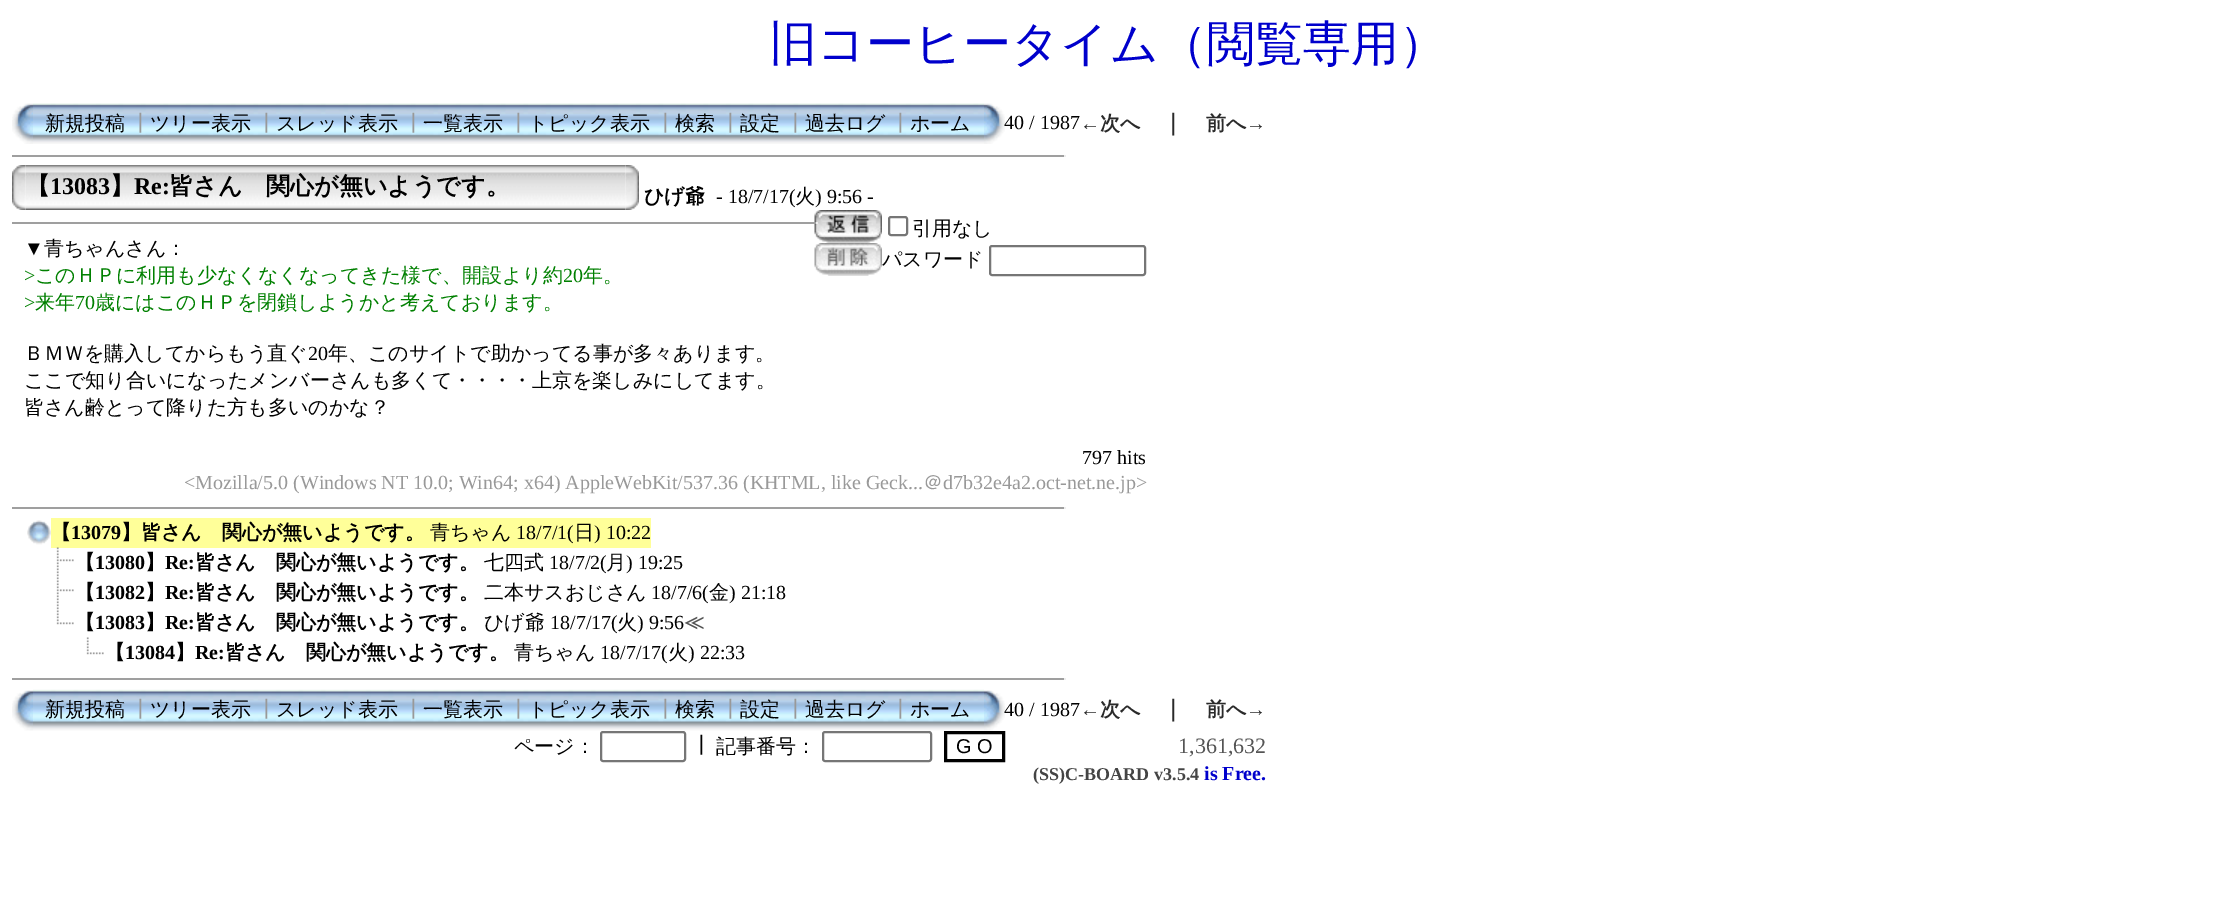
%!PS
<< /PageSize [2215 917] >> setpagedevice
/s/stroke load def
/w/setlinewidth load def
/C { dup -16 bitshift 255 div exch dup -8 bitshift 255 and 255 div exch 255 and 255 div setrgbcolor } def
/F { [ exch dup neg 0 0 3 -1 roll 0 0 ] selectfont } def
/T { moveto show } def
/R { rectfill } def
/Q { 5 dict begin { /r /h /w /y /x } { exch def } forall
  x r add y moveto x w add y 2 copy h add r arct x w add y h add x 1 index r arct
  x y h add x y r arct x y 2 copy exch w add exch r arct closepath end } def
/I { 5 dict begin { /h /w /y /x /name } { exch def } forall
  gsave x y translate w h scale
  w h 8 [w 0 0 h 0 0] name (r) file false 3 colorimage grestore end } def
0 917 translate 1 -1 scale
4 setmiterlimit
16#FFFFFF C
0 0 2215 917 R
/WenQuanYiZenHei-Medium 48 F
16#0000CC C
(旧コーヒータイム（閲覧専用）) 769 60 T
(1.rgb) 12 103 21 41 I
(2.rgb) 33 103 951 41 I
/WenQuanYiZenHei-Medium 20 F
16#000000 C
(新規投稿) 45 130 T
16#999999 C
(┃) 130 130 T
16#000000 C
(ツリー表示) 150 130 T
16#999999 C
(┃) 256 130 T
16#000000 C
(スレッド表示) 276 130 T
16#999999 C
(┃) 403 130 T
16#000000 C
(一覧表示) 423 130 T
16#999999 C
(┃) 508 130 T
16#000000 C
(トピック表示) 528 130 T
16#999999 C
(┃) 655 130 T
16#000000 C
(検索) 675 130 T
16#999999 C
(┃) 720 130 T
16#000000 C
(設定) 740 130 T
16#999999 C
(┃) 785 130 T
16#000000 C
(過去ログ) 805 130 T
16#999999 C
(┃) 890 130 T
16#000000 C
(ホーム) 910 130 T
(3.rgb) 984 103 21 41 I
/LiberationSerif-Regular 20 F
(40 / 1987) 1004 129 T
/LiberationSerif-Bold 20 F
16#2A2A2A C
(←) 1080 130 T
/WenQuanYiZenHei-Bold 20 F
(次へ) 1100 130 T
/WenQuanYiZenHei-Bold 22 F
(｜) 1162 130 T
/WenQuanYiZenHei-Bold 20 F
(前へ) 1206 130 T
/LiberationSerif-Bold 20 F
(→) 1246 130 T
16#9F9F9F C
12 155 1053 2 R
16#EEEEEE C
1064 155 2 2 R
(5.rgb) 25 165 601 45 I
(4.rgb) 12 165 14 45 I
/WenQuanYiZenHei-Bold 24 F
16#000000 C
(【) 26 194 T
/LiberationSerif-Bold 24 F
(13083) 50 194 T
/WenQuanYiZenHei-Bold 24 F
(】) 110 194 T
/LiberationSerif-Bold 24 F
(Re:) 134 194 T
/WenQuanYiZenHei-Bold 24 F
(皆さん　関心が無いようです。) 169 194 T
(6.rgb) 625 165 14 45 I
/WenQuanYiZenHei-Bold 20 F
(ひげ爺) 644 203 T
/LiberationSerif-Regular 20 F
(- 18/7/17\() 716 203 T
/WenQuanYiZenHei-Medium 20 F
(火) 795 203 T
/LiberationSerif-Regular 20 F
(\) 9:56 -) 815 203 T
(▼) 24 255 T
/WenQuanYiZenHei-Medium 20 F
(青ちゃんさん：) 44 255 T
/LiberationSerif-Regular 20 F
16#008000 C
(>) 24 282 T
/WenQuanYiZenHei-Medium 20 F
(このＨＰに利用も少なくなくなってきた様で、開設より約) 35 282 T
/LiberationSerif-Regular 20 F
(20) 563 282 T
/WenQuanYiZenHei-Medium 20 F
(年。) 583 282 T
/LiberationSerif-Regular 20 F
(>) 24 309 T
/WenQuanYiZenHei-Medium 20 F
(来年) 35 309 T
/LiberationSerif-Regular 20 F
(70) 75 309 T
/WenQuanYiZenHei-Medium 20 F
(歳にはこのＨＰを閉鎖しようかと考えております。) 95 309 T
16#000000 C
(ＢＭＷを購入してからもう直ぐ) 24 360 T
/LiberationSerif-Regular 20 F
(20) 308 360 T
/WenQuanYiZenHei-Medium 20 F
(年、このサイトで助かってる事が多々あります。) 328 360 T
(ここで知り合いになったメンバーさんも多くて・・・・上京を楽しみにしてます。) 24 387 T
(皆さん齢とって降りた方も多いのかな？) 24 414 T
(7.rgb) 814 210 68 33 I
16#9F9F9F C
12 222 806 2 R
16#EEEEEE C
816 222 2 2 R
16#767676 C
2 w
889 217 18 18 2 Q s
16#000000 C
(引用なし) 912 235 T
(8.rgb) 814 243 68 33 I
(パスワード) 882 266 T
16#767676 C
990 246 155 29 2 Q s
/LiberationSerif-Regular 20 F
16#000000 C
(797 hits) 1082 464 T
16#999999 C
(<Mozilla/5.0 \(Windows NT 10.0; Win64; x64\) AppleWebKit/537.36 \(KHTML, like Geck...) 184 489 T
/WenQuanYiZenHei-Medium 20 F
(＠) 923 489 T
/LiberationSerif-Regular 20 F
(d7b32e4a2.oct-net.ne.jp>) 943 489 T
16#9F9F9F C
12 507 1053 2 R
16#EEEEEE C
1064 507 2 2 R
(9.rgb) 27 520 24 25 I
16#FFFF99 C
51 518 600 30 R
/WenQuanYiZenHei-Bold 20 F
16#000000 C
(【) 51 539 T
/LiberationSerif-Bold 20 F
(13079) 71 539 T
/WenQuanYiZenHei-Bold 20 F
(】皆さん　関心が無いようです。) 121 539 T
/WenQuanYiZenHei-Medium 20 F
(青ちゃん) 430 539 T
/LiberationSerif-Regular 20 F
(18/7/1\() 516 539 T
/WenQuanYiZenHei-Medium 20 F
(日) 574 539 T
/LiberationSerif-Regular 20 F
(\) 10:22) 594 539 T
(10.rgb) 56 547 18 30 I
/WenQuanYiZenHei-Bold 20 F
(【) 75 569 T
/LiberationSerif-Bold 20 F
(13080) 95 569 T
/WenQuanYiZenHei-Bold 20 F
(】) 145 569 T
/LiberationSerif-Bold 20 F
(Re:) 165 569 T
/WenQuanYiZenHei-Bold 20 F
(皆さん　関心が無いようです。) 195 569 T
/WenQuanYiZenHei-Medium 20 F
(七四式) 484 569 T
/LiberationSerif-Regular 20 F
(18/7/2\() 549 569 T
/WenQuanYiZenHei-Medium 20 F
(月) 606 569 T
/LiberationSerif-Regular 20 F
(\) 19:25) 626 569 T
(11.rgb) 56 577 18 30 I
/WenQuanYiZenHei-Bold 20 F
(【) 75 599 T
/LiberationSerif-Bold 20 F
(13082) 95 599 T
/WenQuanYiZenHei-Bold 20 F
(】) 145 599 T
/LiberationSerif-Bold 20 F
(Re:) 165 599 T
/WenQuanYiZenHei-Bold 20 F
(皆さん　関心が無いようです。) 195 599 T
/WenQuanYiZenHei-Medium 20 F
(二本サスおじさん) 484 599 T
/LiberationSerif-Regular 20 F
(18/7/6\() 651 599 T
/WenQuanYiZenHei-Medium 20 F
(金) 709 599 T
/LiberationSerif-Regular 20 F
(\) 21:18) 729 599 T
(12.rgb) 56 607 18 18 I
/WenQuanYiZenHei-Bold 20 F
(【) 75 629 T
/LiberationSerif-Bold 20 F
(13083) 95 629 T
/WenQuanYiZenHei-Bold 20 F
(】) 145 629 T
/LiberationSerif-Bold 20 F
(Re:) 165 629 T
/WenQuanYiZenHei-Bold 20 F
(皆さん　関心が無いようです。) 195 629 T
/WenQuanYiZenHei-Medium 20 F
(ひげ爺) 484 629 T
/LiberationSerif-Regular 20 F
(18/7/17\() 550 629 T
/WenQuanYiZenHei-Medium 20 F
(火) 617 629 T
/LiberationSerif-Regular 20 F
(\) 9:56) 637 629 T
/WenQuanYiZenHei-Bold 20 F
16#555555 C
(≪) 684 629 T
(12.rgb) 86 637 18 18 I
16#000000 C
(【) 105 659 T
/LiberationSerif-Bold 20 F
(13084) 125 659 T
/WenQuanYiZenHei-Bold 20 F
(】) 175 659 T
/LiberationSerif-Bold 20 F
(Re:) 195 659 T
/WenQuanYiZenHei-Bold 20 F
(皆さん　関心が無いようです。) 225 659 T
/WenQuanYiZenHei-Medium 20 F
(青ちゃん) 514 659 T
/LiberationSerif-Regular 20 F
(18/7/17\() 600 659 T
/WenQuanYiZenHei-Medium 20 F
(火) 668 659 T
/LiberationSerif-Regular 20 F
(\) 22:33) 688 659 T
16#9F9F9F C
12 678 1053 2 R
16#EEEEEE C
1064 678 2 2 R
(13.rgb) 12 690 21 41 I
(14.rgb) 33 689 951 42 I
/WenQuanYiZenHei-Medium 20 F
16#000000 C
(新規投稿) 45 716 T
16#999999 C
(┃) 130 716 T
16#000000 C
(ツリー表示) 150 716 T
16#999999 C
(┃) 256 716 T
16#000000 C
(スレッド表示) 276 716 T
16#999999 C
(┃) 403 716 T
16#000000 C
(一覧表示) 423 716 T
16#999999 C
(┃) 508 716 T
16#000000 C
(トピック表示) 528 716 T
16#999999 C
(┃) 655 716 T
16#000000 C
(検索) 675 716 T
16#999999 C
(┃) 720 716 T
16#000000 C
(設定) 740 716 T
16#999999 C
(┃) 785 716 T
16#000000 C
(過去ログ) 805 716 T
16#999999 C
(┃) 890 716 T
16#000000 C
(ホーム) 910 716 T
(15.rgb) 984 690 21 41 I
/LiberationSerif-Regular 20 F
(40 / 1987) 1004 716 T
/LiberationSerif-Bold 20 F
16#2A2A2A C
(←) 1080 716 T
/WenQuanYiZenHei-Bold 20 F
(次へ) 1100 716 T
/WenQuanYiZenHei-Bold 22 F
(｜) 1162 716 T
/WenQuanYiZenHei-Bold 20 F
(前へ) 1206 716 T
/LiberationSerif-Bold 20 F
(→) 1246 716 T
/WenQuanYiZenHei-Medium 20 F
16#000000 C
(ページ：) 514 753 T
16#767676 C
601 732 84 29 2 Q s
16#000000 C
(┃) 691 752 T
(記事番号：) 716 753 T
16#767676 C
823 732 108 29 2 Q s
16#000000 C
3 w
945.5 732.5 58 28 rectstroke
/LiberationSans-Regular 20 F
(G O) 956 753 T
/LiberationSerif-Regular 22 F
16#555555 C
(1,361,632) 1178 753 T
/LiberationSerif-Bold 18 F
16#444444 C
(\(SS\)C-BOARD) 1033 780 T
(v3.5.4) 1154 780 T
/LiberationSerif-Bold 20 F
16#0000CC C
(is Free.) 1204 780 T
showpage
